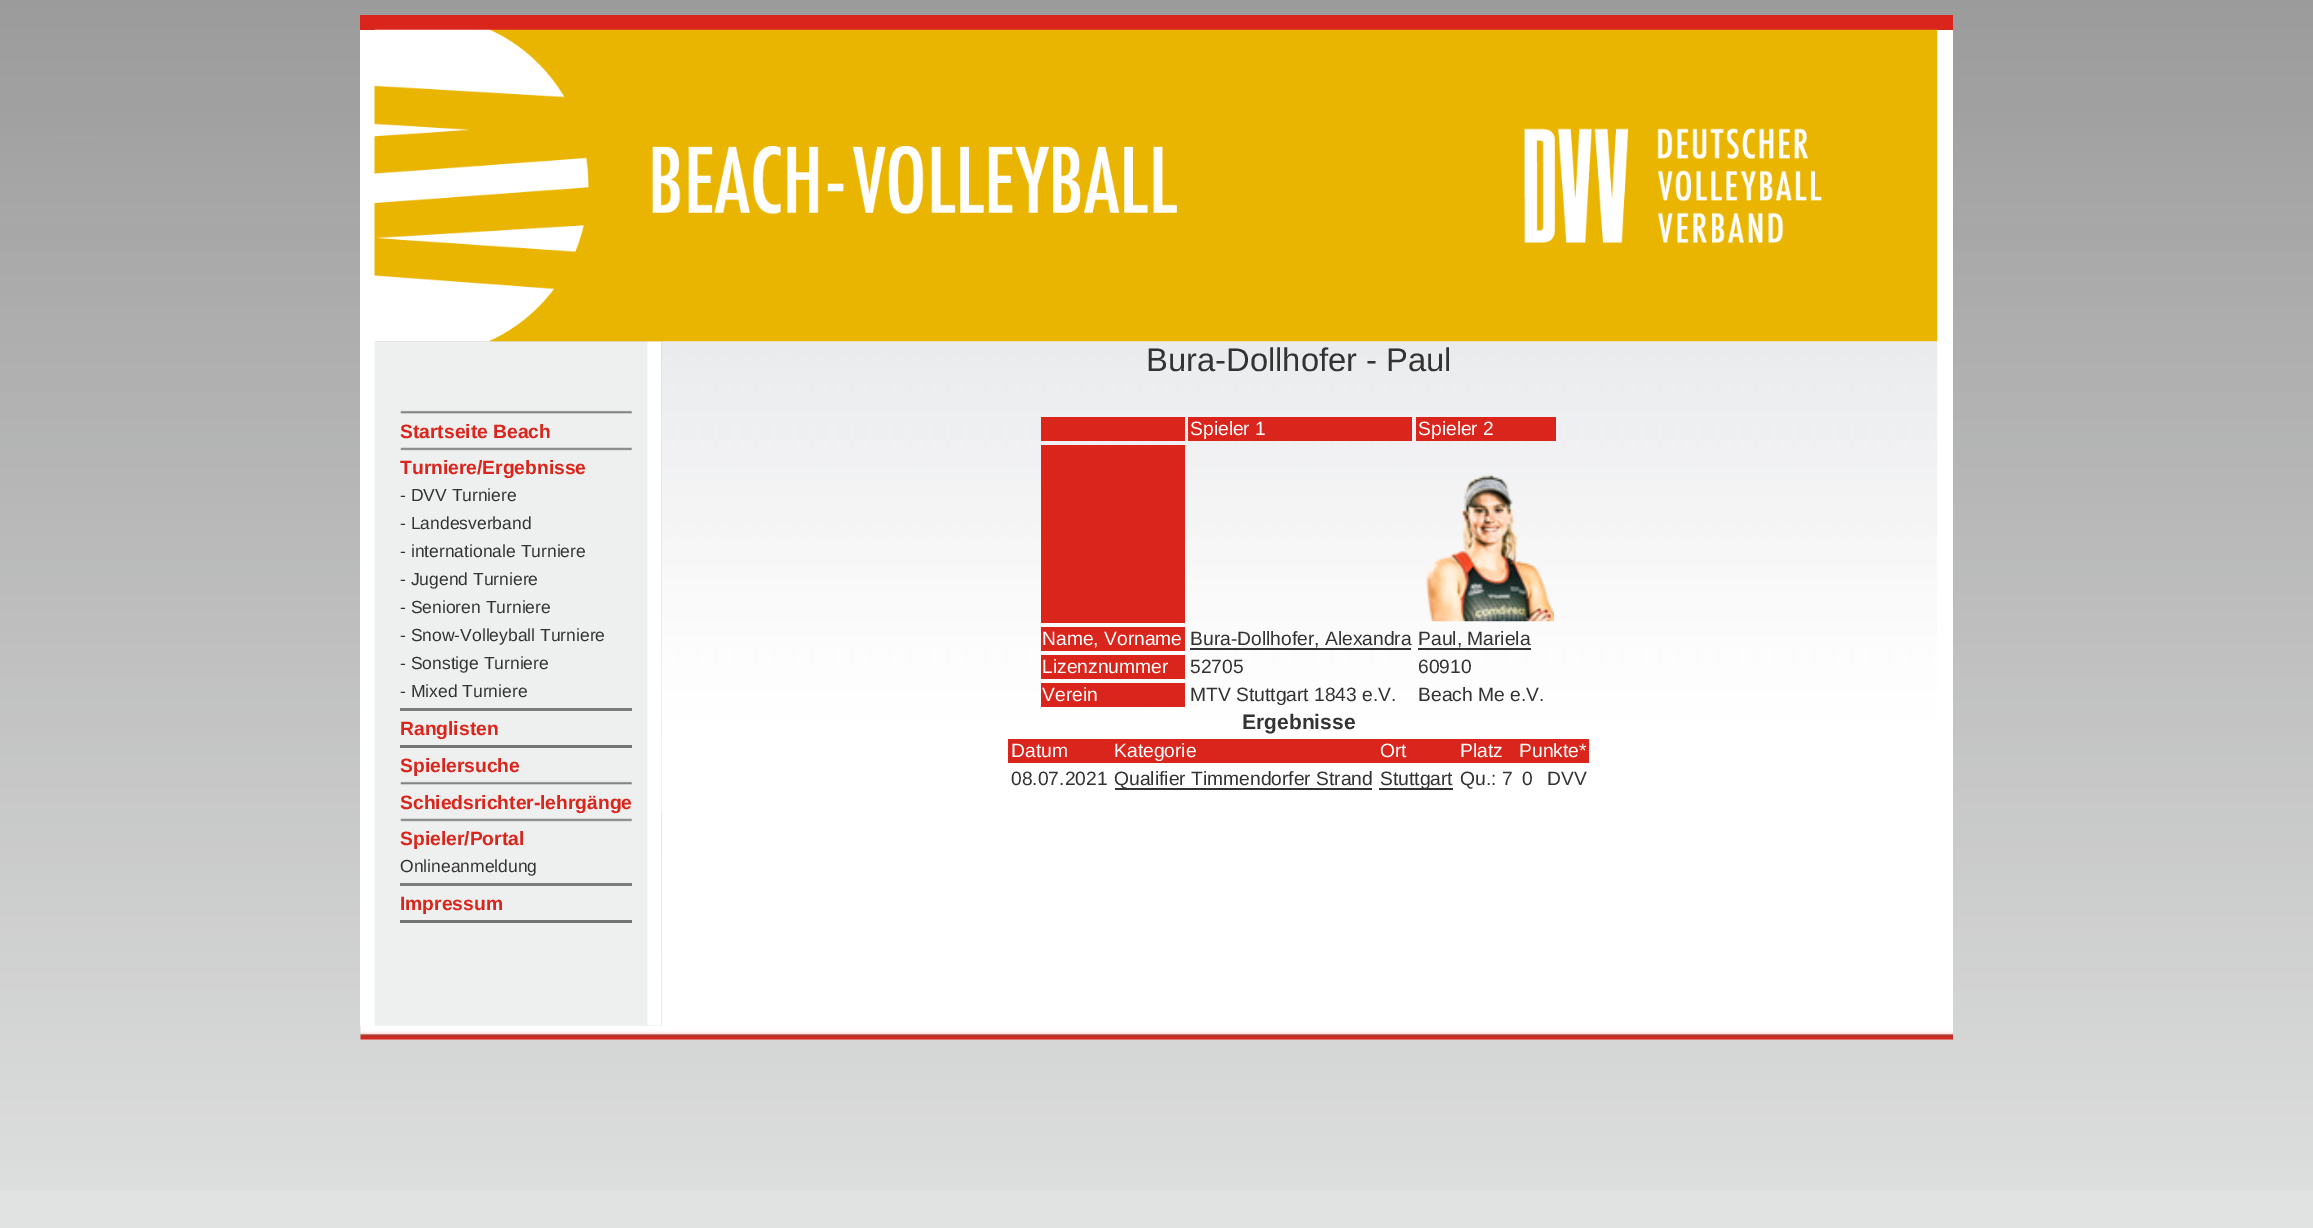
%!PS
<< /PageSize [2313 1228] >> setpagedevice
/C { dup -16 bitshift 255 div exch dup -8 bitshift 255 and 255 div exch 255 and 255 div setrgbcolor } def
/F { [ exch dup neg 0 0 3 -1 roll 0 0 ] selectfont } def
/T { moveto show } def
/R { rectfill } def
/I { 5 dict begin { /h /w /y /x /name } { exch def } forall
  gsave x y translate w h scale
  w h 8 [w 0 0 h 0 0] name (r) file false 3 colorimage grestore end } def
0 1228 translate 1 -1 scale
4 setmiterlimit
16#E1E3E2 C
0 0 2313 1228 R
(1.rgb) 0 0 2313 1190 I
16#DA251C C
360 15 1593 15 R
16#FFFFFF C
360 30 15 996 R
1937 30 16 996 R
(3.rgb) 374 341 288 685 I
662 341 1275 685 R
(6.rgb) 661 341 1277 471 I
(2.rgb) 374 29 1564 313 I
(4.rgb) 400 410 232 4 I
/LiberationSans-Bold 19.25 F
16#DA251C C
(Startseite Beach) 400 438 T
(5.rgb) 400 447 232 4 I
(Turniere/Ergebnisse) 400 474 T
/LiberationSans-Regular 17.5 F
16#333333 C
(- DVV Turniere) 400 501 T
(- Landesverband) 400 529 T
(- internationale Turniere) 400 557 T
(- Jugend Turniere) 400 585 T
(- Senioren Turniere) 400 613 T
(- Snow-Volleyball Turniere) 400 641 T
(- Sonstige Turniere) 400 669 T
(- Mixed Turniere) 400 697 T
16#7B7B7B C
400 708 232 3 R
/LiberationSans-Bold 19.25 F
16#DA251C C
(Ranglisten) 400 735 T
16#737373 C
400 745 232 3 R
16#DA251C C
(Spielersuche) 400 772 T
(4.rgb) 400 781 232 4 I
(Schiedsrichter-lehrgänge) 400 809 T
(5.rgb) 400 818 232 4 I
(Spieler/Portal) 400 845 T
/LiberationSans-Regular 17.5 F
16#333333 C
(Onlineanmeldung) 400 872 T
16#7B7B7B C
400 883 232 3 R
/LiberationSans-Bold 19.25 F
16#DA251C C
(Impressum) 400 910 T
16#737373 C
400 920 232 3 R
/LiberationSans-Regular 32.75 F
16#333333 C
(Bura-Dollhofer - Paul) 1146 371 T
16#DA251C C
1041 417 144 24 R
1188 417 224 24 R
/LiberationSans-Regular 19.25 F
16#FFFFFF C
(Spieler 1) 1190 435 T
16#DA251C C
1416 417 140 24 R
16#FFFFFF C
(Spieler 2) 1418 435 T
16#DA251C C
1041 445 144 178 R
(7.rgb) 1426 475 128 147 I
1041 627 144 24 R
16#FFFFFF C
(Name, Vorname) 1042 645 T
16#333333 C
(Bura-Dollhofer, Alexandra) 1190 645 T
1190 648 221 2 R
(Paul, Mariela) 1418 645 T
1418 648 113 2 R
16#DA251C C
1041 655 144 24 R
16#FFFFFF C
(Lizenznummer) 1042 673 T
16#333333 C
(52705) 1190 673 T
(60910) 1418 673 T
16#DA251C C
1041 683 144 24 R
16#FFFFFF C
(Verein) 1042 701 T
16#333333 C
(MTV Stuttgart 1843 e.V.) 1190 701 T
(Beach Me e.V.) 1418 701 T
/LiberationSans-Bold 21 F
(Ergebnisse) 1242 729 T
16#DA251C C
1008 739 581 24 R
/LiberationSans-Regular 19.25 F
16#FFFFFF C
(Datum) 1011 757 T
(Kategorie) 1114 757 T
(Ort) 1380 757 T
(Platz) 1460 757 T
(Punkte*) 1519 757 T
16#333333 C
(08.07.2021) 1011 785 T
1115 788 257 2 R
(Qualifier Timmendorfer Strand) 1114 785 T
1379 788 74 2 R
(Stuttgart) 1380 785 T
(Qu.: 7) 1460 785 T
(0) 1522 785 T
(DVV) 1547 785 T
(8.rgb) 360 1025 1593 15 I
showpage
